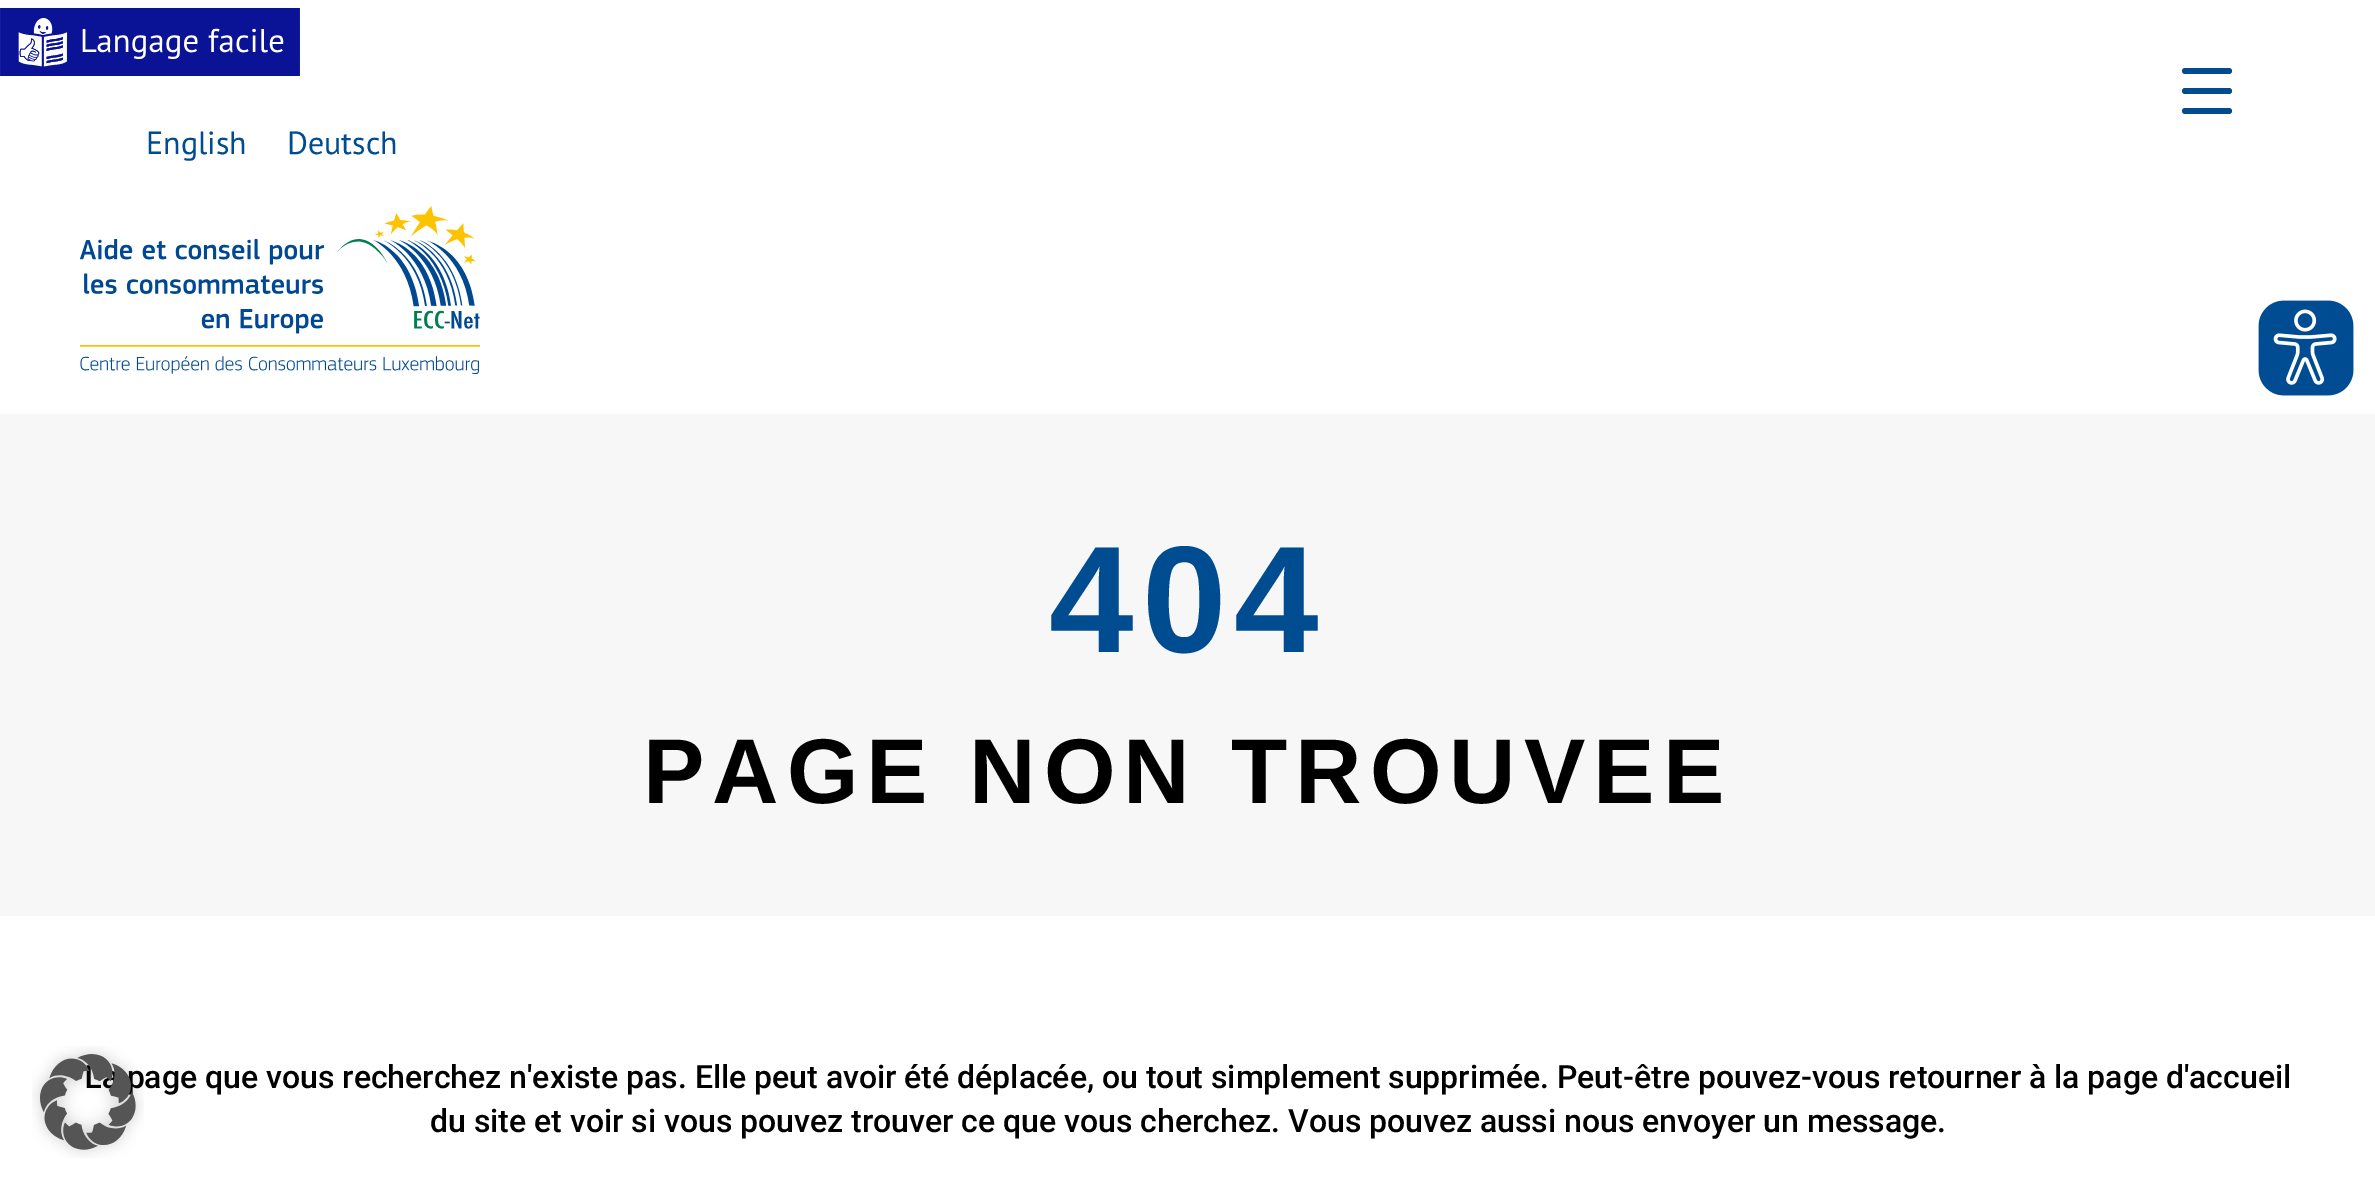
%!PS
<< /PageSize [2375 1189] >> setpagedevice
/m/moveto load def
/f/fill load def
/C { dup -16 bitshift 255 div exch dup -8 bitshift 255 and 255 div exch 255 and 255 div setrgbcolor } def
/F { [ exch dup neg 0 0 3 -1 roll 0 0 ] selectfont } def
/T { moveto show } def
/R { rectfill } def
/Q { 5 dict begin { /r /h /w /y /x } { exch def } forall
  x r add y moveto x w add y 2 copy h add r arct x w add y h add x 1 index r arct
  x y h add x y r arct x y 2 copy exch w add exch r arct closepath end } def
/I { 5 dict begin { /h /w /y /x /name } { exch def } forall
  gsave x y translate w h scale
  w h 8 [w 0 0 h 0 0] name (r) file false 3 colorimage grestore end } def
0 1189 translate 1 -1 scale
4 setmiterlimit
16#FFFFFF C
0 0 2375 1189 R
16#004C91 C
2182 88 50 6 3 Q f
2182 68 50 6 3 Q f
2182 108 50 6 3 Q f
(1.rgb) 0 8 300 68 I
/PTSans-Regular 32 F
(English) 146 154 T
(Deutsch) 287 154 T
(2.rgb) 80 206 400 168 I
16#F7F7F7 C
0 414 2375 502 R
/LiberationSans-Bold 152 F
16#004C91 C
1049 652 m 8 0 (404) ashow
/LiberationSans-Bold 92 F
16#000000 C
643 803 m 8 0 (PAGE NON TROUVEE) ashow
/Roboto-Medium 32 F
(La page que vous recherchez n'existe pas. Elle peut avoir été déplacée, ou tout simplement supprimée. Peut-être pouvez-vous retourner à la page d'accueil) 84 1088 T
(du site et voir si vous pouvez trouver ce que vous cherchez. Vous pouvez aussi nous envoyer un message.) 430 1132 T
(3.rgb) 2258 300 96 96 I
(4.rgb) 32 1046 112 112 I
showpage
